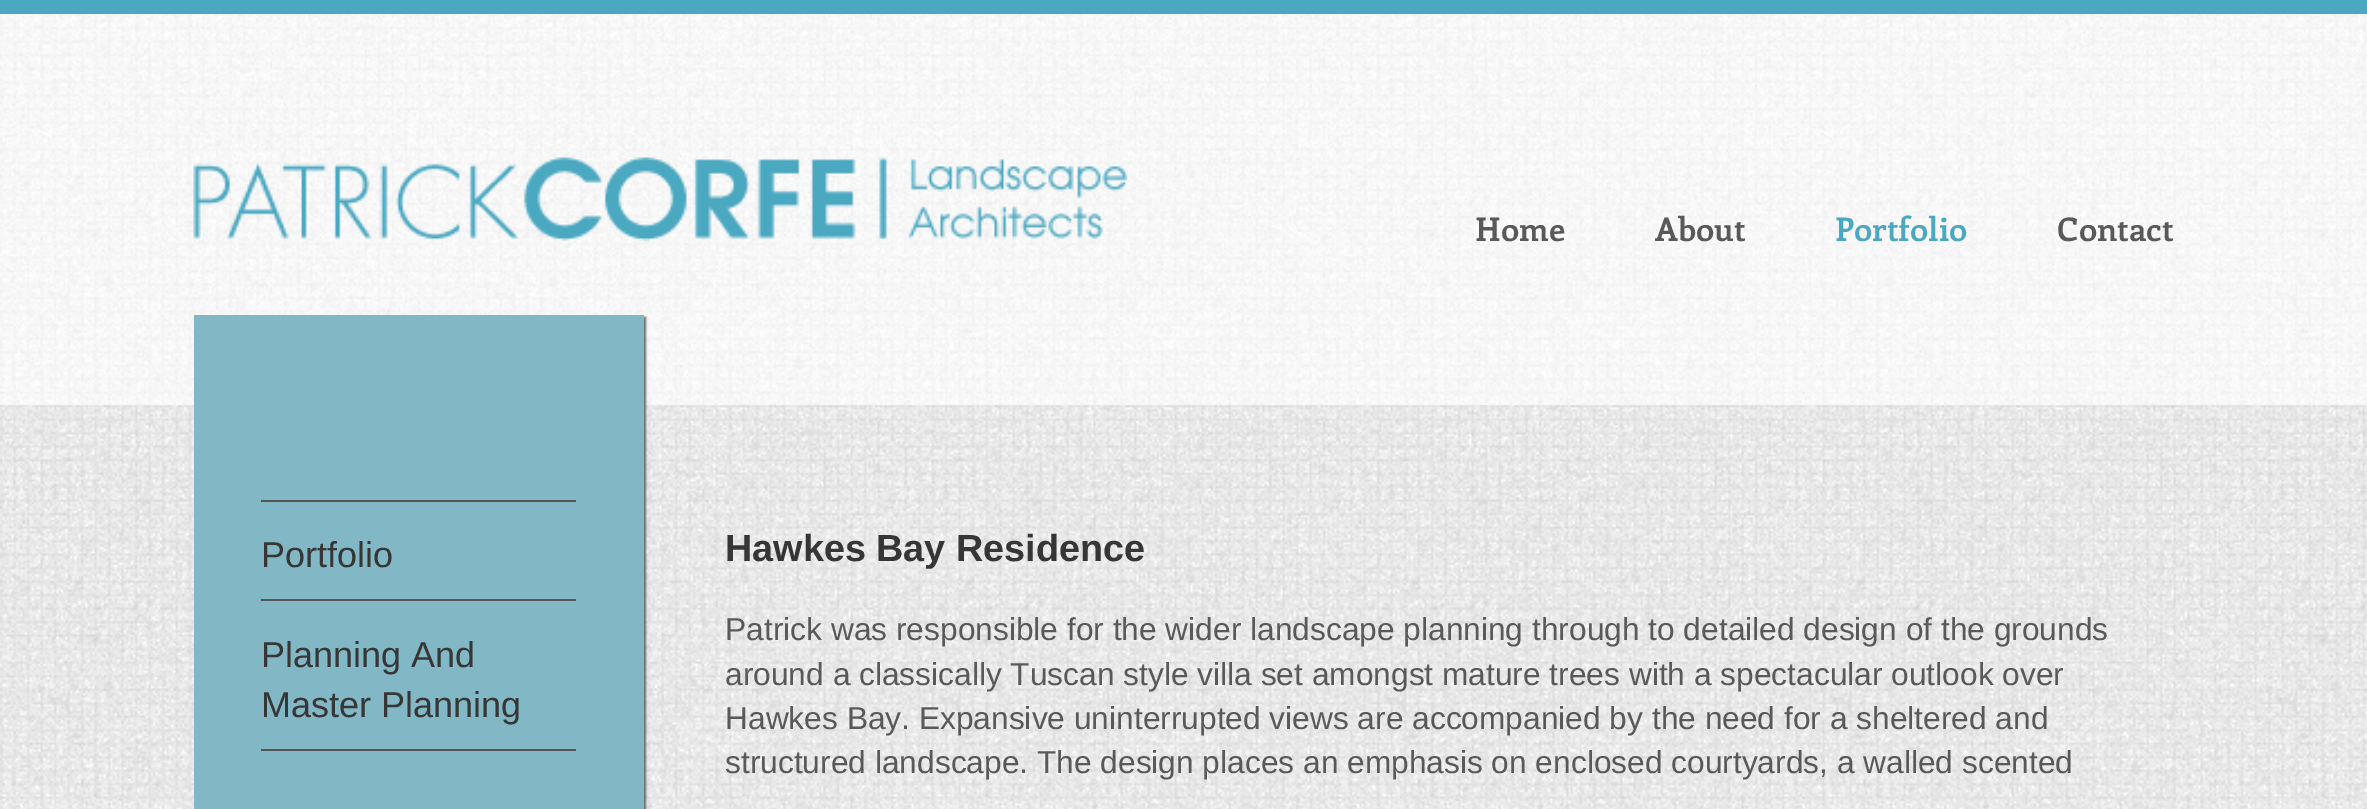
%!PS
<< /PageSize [2367 809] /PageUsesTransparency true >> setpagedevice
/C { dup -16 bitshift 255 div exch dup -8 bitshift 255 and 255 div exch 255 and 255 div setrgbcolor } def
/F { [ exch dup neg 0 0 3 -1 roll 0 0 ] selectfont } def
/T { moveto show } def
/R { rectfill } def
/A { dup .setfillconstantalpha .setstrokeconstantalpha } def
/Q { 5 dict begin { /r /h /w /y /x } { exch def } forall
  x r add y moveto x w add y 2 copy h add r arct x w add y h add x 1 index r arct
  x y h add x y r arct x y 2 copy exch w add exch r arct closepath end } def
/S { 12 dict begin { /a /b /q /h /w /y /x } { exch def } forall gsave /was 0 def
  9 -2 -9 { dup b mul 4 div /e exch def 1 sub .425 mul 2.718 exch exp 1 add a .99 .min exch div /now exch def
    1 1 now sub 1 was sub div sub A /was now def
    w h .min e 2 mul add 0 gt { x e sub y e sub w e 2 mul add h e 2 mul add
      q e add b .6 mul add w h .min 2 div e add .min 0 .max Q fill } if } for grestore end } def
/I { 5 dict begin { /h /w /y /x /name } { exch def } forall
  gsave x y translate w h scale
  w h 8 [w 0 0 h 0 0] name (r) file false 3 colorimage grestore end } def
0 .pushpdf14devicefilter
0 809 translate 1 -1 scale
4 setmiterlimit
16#FFFFFF C
0 0 2367 809 R
(1.rgb) 0 14 2367 391 I
16#4BA8C1 C
0 0 2367 14 R
(2.rgb) 193 157 935 84 I
/Enriqueta-Bold 32.5 F
16#595959 C
(Home) 1475 241 T
(About) 1655 241 T
16#4BA8C1 C
(Portfolio) 1835 241 T
16#595959 C
(Contact) 2057 241 T
(3.rgb) 0 405 2367 404 I
16#666666 C
196 317 450 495 0 1 1 S
16#82B8C6 C
194 315 450 494 R
16#555555 C
261 500 315 2 R
/LiberationSans-Regular 36 F
16#363636 C
(Portfolio) 261 567 T
16#555555 C
261 599 315 2 R
16#363636 C
(Planning And) 261 667 T
(Master Planning) 261 717 T
16#555555 C
261 749 315 2 R
/LiberationSans-Bold 37.75 F
16#363636 C
(Hawkes Bay Residence) 725 561 T
/LiberationSans-Regular 31.7 F
16#595959 C
(Patrick was responsible for the wider landscape planning through to detailed design of the grounds) 725 640 T
(around a classically Tuscan style villa set amongst mature trees with a spectacular outlook over) 725 685 T
(Hawkes Bay. Expansive uninterrupted views are accompanied by the need for a sheltered and) 725 729 T
(structured landscape. The design places an emphasis on enclosed courtyards, a walled scented) 725 773 T
.poppdf14devicefilter showpage
